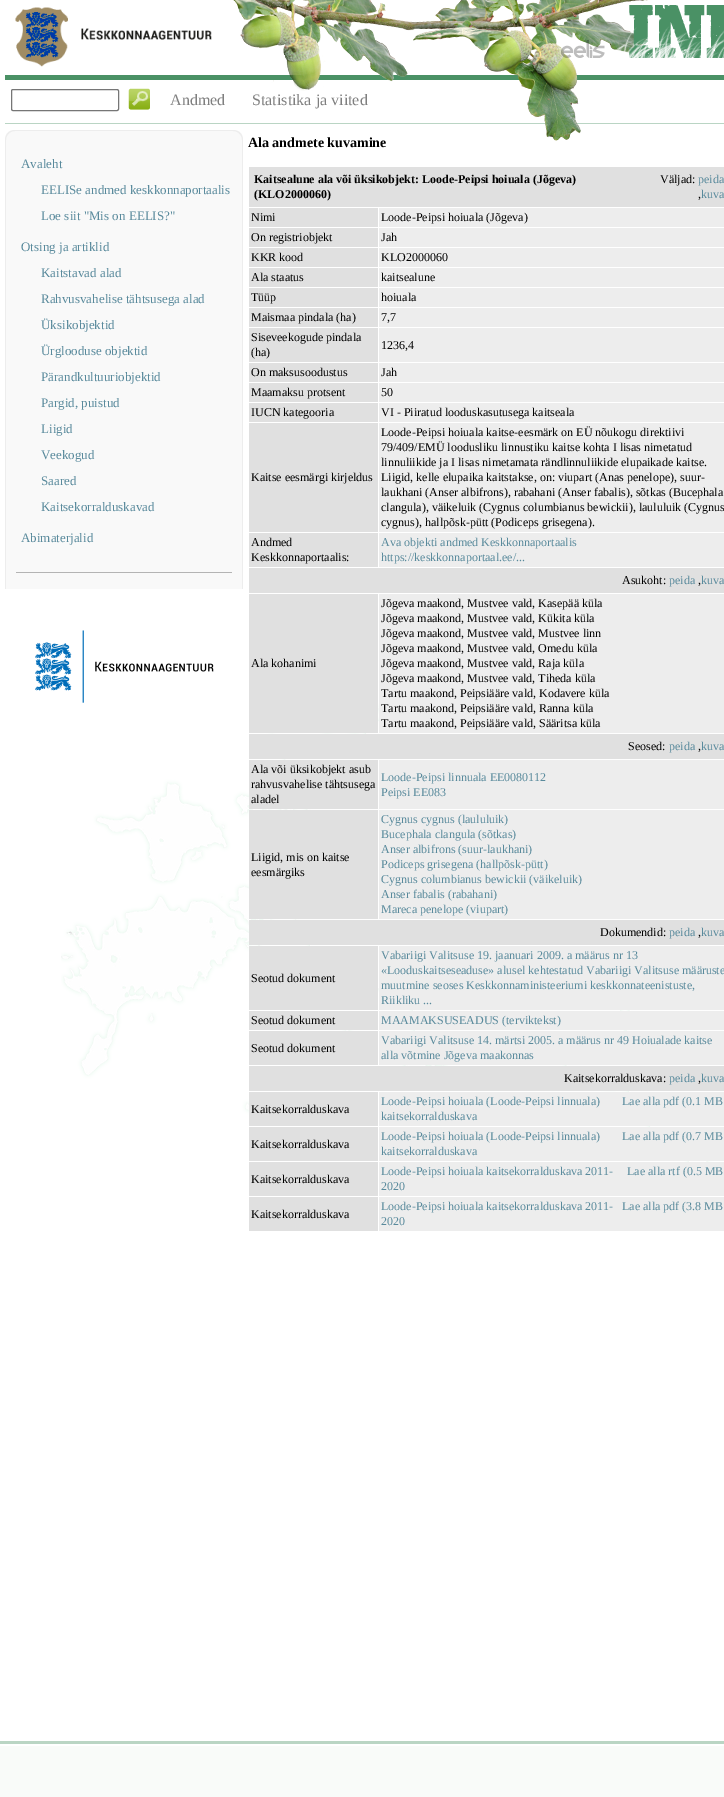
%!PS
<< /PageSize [724 1797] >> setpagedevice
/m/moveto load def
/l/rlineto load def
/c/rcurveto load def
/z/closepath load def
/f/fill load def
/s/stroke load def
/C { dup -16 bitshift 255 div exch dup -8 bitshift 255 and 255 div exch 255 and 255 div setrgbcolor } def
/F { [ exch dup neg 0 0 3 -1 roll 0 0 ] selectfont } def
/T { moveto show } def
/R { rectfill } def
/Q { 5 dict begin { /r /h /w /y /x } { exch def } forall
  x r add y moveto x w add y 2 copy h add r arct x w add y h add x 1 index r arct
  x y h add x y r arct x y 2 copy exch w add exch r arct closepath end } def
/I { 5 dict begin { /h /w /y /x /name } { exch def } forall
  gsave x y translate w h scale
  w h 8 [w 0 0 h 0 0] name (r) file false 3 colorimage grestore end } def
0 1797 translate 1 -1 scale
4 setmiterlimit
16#F9FBF9 C
0 0 724 1797 R
16#FFFFFF C
0 0 724 1741 R
(1.rgb) 61 635 663 537 I
16#4A9165 C
5 75 719 5 R
(2.rgb) 233 0 232 91 I
16#BAD5C4 C
5 123 719 1 R
(3.rgb) 465 0 183 141 I
(4.rgb) 15 7 197 60 I
(5.rgb) 561 5 163 53 I
16#767676 C
11.5 89.5 107 21 1.5 Q s
(6.rgb) 128 88 22 22 I
/LiberationSerif-Regular 16 F
16#7F7F7F C
(Andmed) 170 105 T
(Statistika ja viited) 252 105 T
16#F9F9F9 C
15 131 m 218 0 l 5 0 9 4 9 9 c 0 416 l -236 0 l 0 -416 l 0 -5 4 -9 9 -9 c z f
16#EDEDED C
15 130 m 218 0 l 6 0 10 4 10 10 c 0 416 l -238 0 l 0 -416 l 0 -6 4 -10 10 -10 c z 15 131 m 218 0 l 5 0 9 4 9 9 c 0 416 l -236 0 l 0 -416 l 0 -5 4 -9 9 -9 c z eofill
/LiberationSerif-Regular 13 F
16#598A9C C
(Avaleht) 21 168 T
(EELISe andmed keskkonnaportaalis) 41 194 T
(Loe siit "Mis on EELIS?") 41 220 T
(Otsing ja artiklid) 21 251 T
(Kaitstavad alad) 41 277 T
(Rahvusvahelise tähtsusega alad) 41 303 T
(Üksikobjektid) 41 329 T
(Ürglooduse objektid) 41 355 T
(Pärandkultuuriobjektid) 41 381 T
(Pargid, puistud) 41 407 T
(Liigid) 41 433 T
(Veekogud) 41 459 T
(Saared) 41 485 T
(Kaitsekorralduskavad) 41 511 T
(Abimaterjalid) 21 542 T
16#F9F9F9 C
6 556 236 33 R
16#EDEDED C
242 556 1 33 R
5 556 1 33 R
16#B4B4B4 C
16 572 216 1 R
(7.rgb) 35 630 179 73 I
/LiberationSerif-Bold 14 F
16#000000 C
(Ala andmete kuvamine) 248 147 T
16#E0E0E0 C
249 167 475 40 R
/LiberationSerif-Bold 12 F
16#000000 C
(Kaitsealune ala või üksikobjekt: Loode-Peipsi hoiuala \(Jõgeva\)) 254 183 T
(\(KLO2000060\)) 254 198 T
/LiberationSerif-Regular 12 F
(Väljad:) 660 183 T
16#598A9C C
(peida) 698 183 T
16#000000 C
(,) 698 198 T
16#598A9C C
(kuva) 701 198 T
16#E0E0E0 C
249 208 129 19 R
16#000000 C
(Nimi) 251 221 T
16#EDEDED C
379 208 345 19 R
16#000000 C
(Loode-Peipsi hoiuala \(Jõgeva\)) 381 221 T
16#E0E0E0 C
249 228 129 19 R
16#000000 C
(On registriobjekt) 251 241 T
16#EDEDED C
379 228 345 19 R
16#000000 C
(Jah) 381 241 T
16#E0E0E0 C
249 248 129 19 R
16#000000 C
(KKR kood) 251 261 T
16#EDEDED C
379 248 345 19 R
16#000000 C
(KLO2000060) 381 261 T
16#E0E0E0 C
249 268 129 19 R
16#000000 C
(Ala staatus) 251 281 T
16#EDEDED C
379 268 345 19 R
16#000000 C
(kaitsealune) 381 281 T
16#E0E0E0 C
249 288 129 19 R
16#000000 C
(Tüüp) 251 301 T
16#EDEDED C
379 288 345 19 R
16#000000 C
(hoiuala) 381 301 T
16#E0E0E0 C
249 308 129 19 R
16#000000 C
(Maismaa pindala \(ha\)) 251 321 T
16#EDEDED C
379 308 345 19 R
16#000000 C
(7,7) 381 321 T
16#E0E0E0 C
249 328 129 34 R
16#000000 C
(Siseveekogude pindala) 251 341 T
(\(ha\)) 251 356 T
16#EDEDED C
379 328 345 34 R
16#000000 C
(1236,4) 381 349 T
16#E0E0E0 C
249 363 129 19 R
16#000000 C
(On maksusoodustus) 251 376 T
16#EDEDED C
379 363 345 19 R
16#000000 C
(Jah) 381 376 T
16#E0E0E0 C
249 383 129 19 R
16#000000 C
(Maamaksu protsent) 251 396 T
16#EDEDED C
379 383 345 19 R
16#000000 C
(50) 381 396 T
16#E0E0E0 C
249 403 129 19 R
16#000000 C
(IUCN kategooria) 251 416 T
16#EDEDED C
379 403 345 19 R
16#000000 C
(VI - Piiratud looduskasutusega kaitseala) 381 416 T
16#E0E0E0 C
249 423 129 109 R
16#000000 C
(Kaitse eesmärgi kirjeldus) 251 481 T
16#EDEDED C
379 423 345 109 R
16#000000 C
(Loode-Peipsi hoiuala kaitse-eesmärk on EÜ nõukogu direktiivi) 381 436 T
(79/409/EMÜ loodusliku linnustiku kaitse kohta I lisas nimetatud) 381 451 T
(linnuliikide ja I lisas nimetamata rändlinnuliikide elupaikade kaitse.) 381 466 T
(Liigid, kelle elupaika kaitstakse, on: viupart \(Anas penelope\), suur-) 381 481 T
(laukhani \(Anser albifrons\), rabahani \(Anser fabalis\), sõtkas \(Bucephala) 381 496 T
(clangula\), väikeluik \(Cygnus columbianus bewickii\), laululuik \(Cygnus) 381 511 T
(cygnus\), hallpõsk-pütt \(Podiceps grisegena\).) 381 526 T
16#E0E0E0 C
249 533 129 34 R
16#000000 C
(Andmed) 251 546 T
(Keskkonnaportaalis:) 251 561 T
16#EDEDED C
379 533 345 34 R
16#598A9C C
(Ava objekti andmed Keskkonnaportaalis) 381 546 T
(https://keskkonnaportaal.ee/...) 381 561 T
16#E0E0E0 C
249 568 475 25 R
16#000000 C
(Asukoht:) 622 584 T
16#598A9C C
(peida) 669 584 T
16#000000 C
(,) 698 584 T
16#598A9C C
(kuva) 701 584 T
16#E0E0E0 C
249 594 129 139 R
16#000000 C
(Ala kohanimi) 251 667 T
16#EDEDED C
379 594 345 139 R
16#000000 C
(Jõgeva maakond, Mustvee vald, Kasepää küla) 381 607 T
(Jõgeva maakond, Mustvee vald, Kükita küla) 381 622 T
(Jõgeva maakond, Mustvee vald, Mustvee linn) 381 637 T
(Jõgeva maakond, Mustvee vald, Omedu küla) 381 652 T
(Jõgeva maakond, Mustvee vald, Raja küla) 381 667 T
(Jõgeva maakond, Mustvee vald, Tiheda küla) 381 682 T
(Tartu maakond, Peipsiääre vald, Kodavere küla) 381 697 T
(Tartu maakond, Peipsiääre vald, Ranna küla) 381 712 T
(Tartu maakond, Peipsiääre vald, Sääritsa küla) 381 727 T
16#E0E0E0 C
249 734 475 25 R
16#000000 C
(Seosed:) 628 750 T
16#598A9C C
(peida) 669 750 T
16#000000 C
(,) 698 750 T
16#598A9C C
(kuva) 701 750 T
16#E0E0E0 C
249 760 129 49 R
16#000000 C
(Ala või üksikobjekt asub) 251 773 T
(rahvusvahelise tähtsusega) 251 788 T
(aladel) 251 803 T
16#EDEDED C
379 760 345 49 R
16#598A9C C
(Loode-Peipsi linnuala EE0080112) 381 781 T
(Peipsi EE083) 381 796 T
16#E0E0E0 C
249 810 129 109 R
16#000000 C
(Liigid, mis on kaitse) 251 861 T
(eesmärgiks) 251 876 T
16#EDEDED C
379 810 345 109 R
16#598A9C C
(Cygnus cygnus \(laululuik\)) 381 823 T
(Bucephala clangula \(sõtkas\)) 381 838 T
(Anser albifrons \(suur-laukhani\)) 381 853 T
(Podiceps grisegena \(hallpõsk-pütt\)) 381 868 T
(Cygnus columbianus bewickii \(väikeluik\)) 381 883 T
(Anser fabalis \(rabahani\)) 381 898 T
(Mareca penelope \(viupart\)) 381 913 T
16#E0E0E0 C
249 920 475 25 R
16#000000 C
(Dokumendid:) 600 936 T
16#598A9C C
(peida) 669 936 T
16#000000 C
(,) 698 936 T
16#598A9C C
(kuva) 701 936 T
16#E0E0E0 C
249 946 129 64 R
16#000000 C
(Seotud dokument) 251 982 T
16#EDEDED C
379 946 345 64 R
16#598A9C C
(Vabariigi Valitsuse 19. jaanuari 2009. a määrus nr 13) 381 959 T
(«Looduskaitseseaduse» alusel kehtestatud Vabariigi Valitsuse määruste) 381 974 T
(muutmine seoses Keskkonnaministeeriumi keskkonnateenistuste,) 381 989 T
(Riikliku ...) 381 1004 T
16#E0E0E0 C
249 1011 129 19 R
16#000000 C
(Seotud dokument) 251 1024 T
16#EDEDED C
379 1011 345 19 R
16#598A9C C
(MAAMAKSUSEADUS \(terviktekst\)) 381 1024 T
16#E0E0E0 C
249 1031 129 34 R
16#000000 C
(Seotud dokument) 251 1052 T
16#EDEDED C
379 1031 345 34 R
16#598A9C C
(Vabariigi Valitsuse 14. märtsi 2005. a määrus nr 49 Hoiualade kaitse) 381 1044 T
(alla võtmine Jõgeva maakonnas) 381 1059 T
16#E0E0E0 C
249 1066 475 25 R
16#000000 C
(Kaitsekorralduskava:) 564 1082 T
16#598A9C C
(peida) 669 1082 T
16#000000 C
(,) 698 1082 T
16#598A9C C
(kuva) 701 1082 T
16#E0E0E0 C
249 1092 129 34 R
16#000000 C
(Kaitsekorralduskava) 251 1113 T
16#EDEDED C
379 1092 345 34 R
16#598A9C C
(Loode-Peipsi hoiuala \(Loode-Peipsi linnuala\)) 381 1105 T
(Lae alla pdf \(0.1 MB) 622 1105 T
(kaitsekorralduskava) 381 1120 T
16#E0E0E0 C
249 1127 129 34 R
16#000000 C
(Kaitsekorralduskava) 251 1148 T
16#EDEDED C
379 1127 345 34 R
16#598A9C C
(Loode-Peipsi hoiuala \(Loode-Peipsi linnuala\)) 381 1140 T
(Lae alla pdf \(0.7 MB) 622 1140 T
(kaitsekorralduskava) 381 1155 T
16#E0E0E0 C
249 1162 129 34 R
16#000000 C
(Kaitsekorralduskava) 251 1183 T
16#EDEDED C
379 1162 345 34 R
16#598A9C C
(Loode-Peipsi hoiuala kaitsekorralduskava 2011-) 381 1175 T
(Lae alla rtf \(0.5 MB) 627 1175 T
(2020) 381 1190 T
16#E0E0E0 C
249 1197 129 34 R
16#000000 C
(Kaitsekorralduskava) 251 1218 T
16#EDEDED C
379 1197 345 34 R
16#598A9C C
(Loode-Peipsi hoiuala kaitsekorralduskava 2011-) 381 1210 T
(Lae alla pdf \(3.8 MB) 622 1210 T
(2020) 381 1225 T
(8.rgb) 0 1741 724 5 I
showpage
